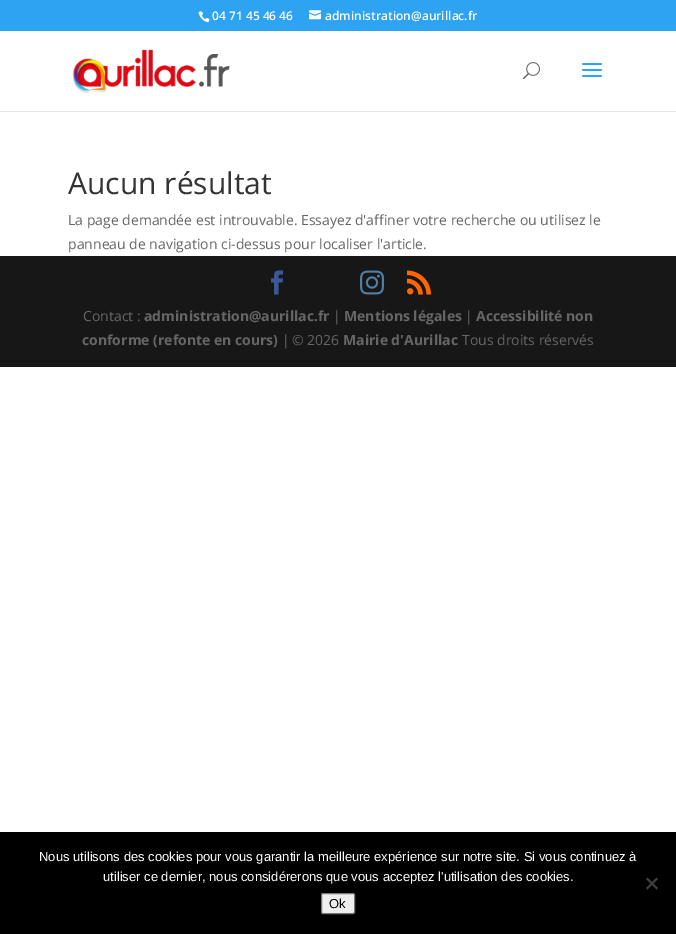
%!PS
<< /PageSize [676 934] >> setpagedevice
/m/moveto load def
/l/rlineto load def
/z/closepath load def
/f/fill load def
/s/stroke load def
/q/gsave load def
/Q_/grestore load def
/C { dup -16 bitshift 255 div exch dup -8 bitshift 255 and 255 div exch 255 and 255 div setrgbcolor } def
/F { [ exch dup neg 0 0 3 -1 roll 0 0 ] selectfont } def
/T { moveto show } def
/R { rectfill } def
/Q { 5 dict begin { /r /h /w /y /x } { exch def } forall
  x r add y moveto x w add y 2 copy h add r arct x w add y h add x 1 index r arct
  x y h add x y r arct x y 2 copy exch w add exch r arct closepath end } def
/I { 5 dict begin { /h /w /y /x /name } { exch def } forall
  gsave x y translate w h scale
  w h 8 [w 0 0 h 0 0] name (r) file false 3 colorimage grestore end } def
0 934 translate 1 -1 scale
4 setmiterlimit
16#FFFFFF C
0 0 676 934 R
16#2EA3F2 C
0 0 676 31 R
(1.rgb) 198 11 12 12 I
/OpenSans-SemiBold 12 F
16#FFFFFF C
(04 71 45 46 46) 212 20 T
(2.rgb) 309 10 12 10 I
(administration@aurillac.fr) 325 20 T
16#E6E6E6 C
0 111 676 1 R
(3.rgb) 72 49 158 44 I
(4.rgb) 523 62 17 18 I
(5.rgb) 582 63 20 14 I
/OpenSans-Regular 30 F
16#333333 C
(Aucun résultat) 68 194 T
/OpenSans-Regular 14 F
16#666666 C
(La page demandée est introuvable. Essayez d'affiner votre recherche ou utilisez le) 68 225 T
(panneau de navigation ci-dessus pour localiser l'article.) 68 249 T
16#171717 C
0 256 676 111 R
(6.rgb) 271 270 12 25 I
(7.rgb) 360 270 24 25 I
(8.rgb) 407 270 24 25 I
16#666666 C
(Contact :) 83 321 T
/OpenSans-Bold 14 F
(administration@aurillac.fr) 144 321 T
/OpenSans-Regular 14 F
(|) 333 321 T
/OpenSans-Bold 14 F
(Mentions légales) 344 321 T
/OpenSans-Regular 14 F
(|) 465 321 T
/OpenSans-Bold 14 F
(Accessibilité non) 476 321 T
(conforme \(refonte en cours\)) 82 345 T
/OpenSans-Regular 14 F
(|) 282 345 T
(© 2026) 292 345 T
/OpenSans-Bold 14 F
(Mairie d'Aurillac) 343 345 T
/OpenSans-Regular 14 F
(Tous droits réservés) 462 345 T
16#000000 C
0 832 676 102 R
/LiberationSans-Regular 13 F
16#FFFFFF C
(Nous utilisons des cookies pour vous garantir la meilleure expérience sur notre site. Si vous continuez à) 39 861 T
(utiliser ce dernier, nous considérerons que vous acceptez l'utilisation des cookies.) 103 881 T
16#404040 C
656.5 877.5 m 1.5 1.5 l -10.5 10.5 l -1.5 -1.5 l z f
646 879 m 1.5 -1.5 l 10.5 10.5 l -1.5 1.5 l z f
16#EFEFEF C
321.5 893.5 33 20 1.5 Q q f Q_
16#767676 C
s
16#000000 C
(Ok) 329 908 T
showpage
